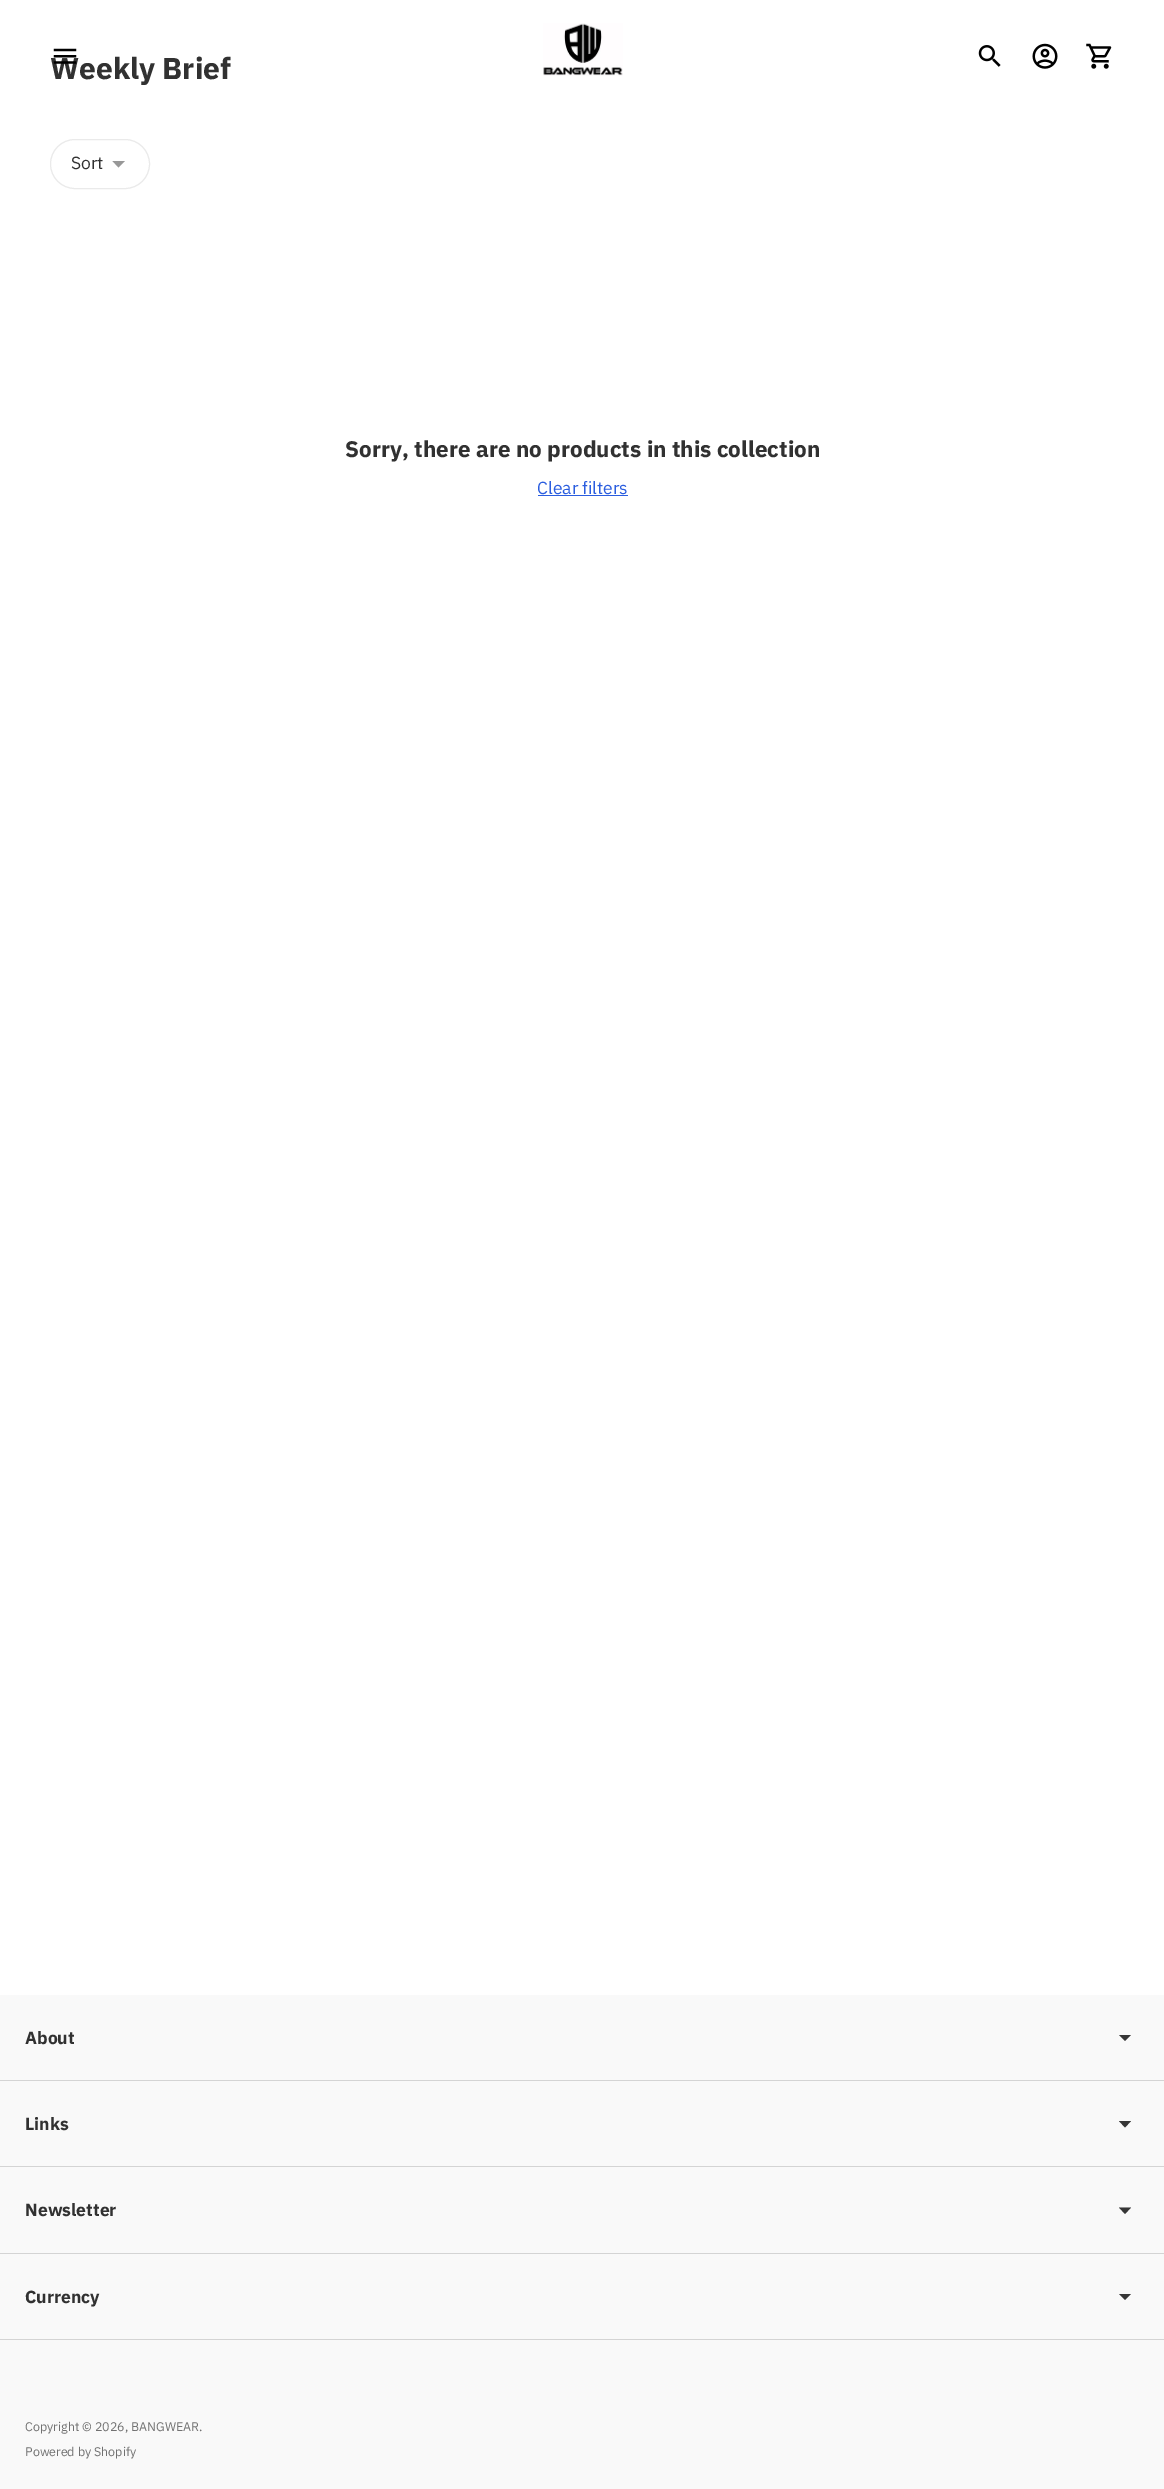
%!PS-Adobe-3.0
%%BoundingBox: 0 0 1164 2489
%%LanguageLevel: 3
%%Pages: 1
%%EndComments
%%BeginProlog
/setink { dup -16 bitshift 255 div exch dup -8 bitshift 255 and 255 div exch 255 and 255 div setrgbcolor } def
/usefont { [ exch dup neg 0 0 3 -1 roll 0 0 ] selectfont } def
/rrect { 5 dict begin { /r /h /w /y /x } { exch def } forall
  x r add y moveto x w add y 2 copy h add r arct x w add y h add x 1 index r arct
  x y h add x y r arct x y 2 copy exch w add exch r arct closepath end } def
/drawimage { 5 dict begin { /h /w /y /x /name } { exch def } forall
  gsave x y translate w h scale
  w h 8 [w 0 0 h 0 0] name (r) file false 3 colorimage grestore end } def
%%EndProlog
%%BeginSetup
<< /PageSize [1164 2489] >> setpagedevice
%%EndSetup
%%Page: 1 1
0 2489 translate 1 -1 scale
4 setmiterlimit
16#FFFFFF setink
0 0 1164 2489 rectfill
/IBMPlexSans-Bold 30 usefont
16#313131 setink
50 79 moveto (Weekly Brief) show
(img1.raw) 53 48 24 16 drawimage
(img2.raw) 543 23 80 53 drawimage
(img3.raw) 978 45 23 22 drawimage
(img4.raw) 1032 43 26 26 drawimage
(img5.raw) 1086 43 26 26 drawimage
16#EAEAEA setink
50.5 139.5 99 49 24.5 rrect stroke
/IBMPlexSans-Regular 17.5 usefont
16#313131 setink
71 169 moveto (Sort) show
16#989898 setink
112.5 161 moveto 118.5 167.5 lineto 125 161 lineto closepath fill
/IBMPlexSans-Bold 22.5 usefont
16#313131 setink
345 457 moveto (Sorry, there are no products in this collection) show
/IBMPlexSans-Regular 17.5 usefont
16#2A5DDF setink
537 494 moveto (Clear filters) show
[
    [538 495 90 1 16#2A5DDF]
    [0 1995 1164 494 16#F9F9F9]
    [0 2080 1164 1 16#D4D4D4]
] { aload pop setink rectfill } forall
/IBMPlexSans-Bold 17.5 usefont
16#313131 setink
25 2044 moveto (About) show
16#363636 setink
1119 2035 moveto 1125 2041 lineto 1131 2035 lineto closepath fill
16#D4D4D4 setink
0 2166 1164 1 rectfill
16#313131 setink
25 2130 moveto (Links) show
16#363636 setink
1119 2121 moveto 1125 2127.5 lineto 1131 2121 lineto closepath fill
16#D4D4D4 setink
0 2253 1164 1 rectfill
16#313131 setink
25 2216 moveto (Newsletter) show
16#363636 setink
1119 2207.5 moveto 1125 2214 lineto 1131 2207.5 lineto closepath fill
16#D4D4D4 setink
0 2339 1164 1 rectfill
16#313131 setink
25 2303 moveto (Currency) show
16#363636 setink
1119 2294 moveto 1125 2300 lineto 1131 2294 lineto closepath fill
/IBMPlexSans-Regular 12.5 usefont
16#717171 setink
25 2431 moveto (Copyright © 2026, BANGWEAR.) show
25 2456 moveto (Powered by Shopify) show
showpage
%%EOF
